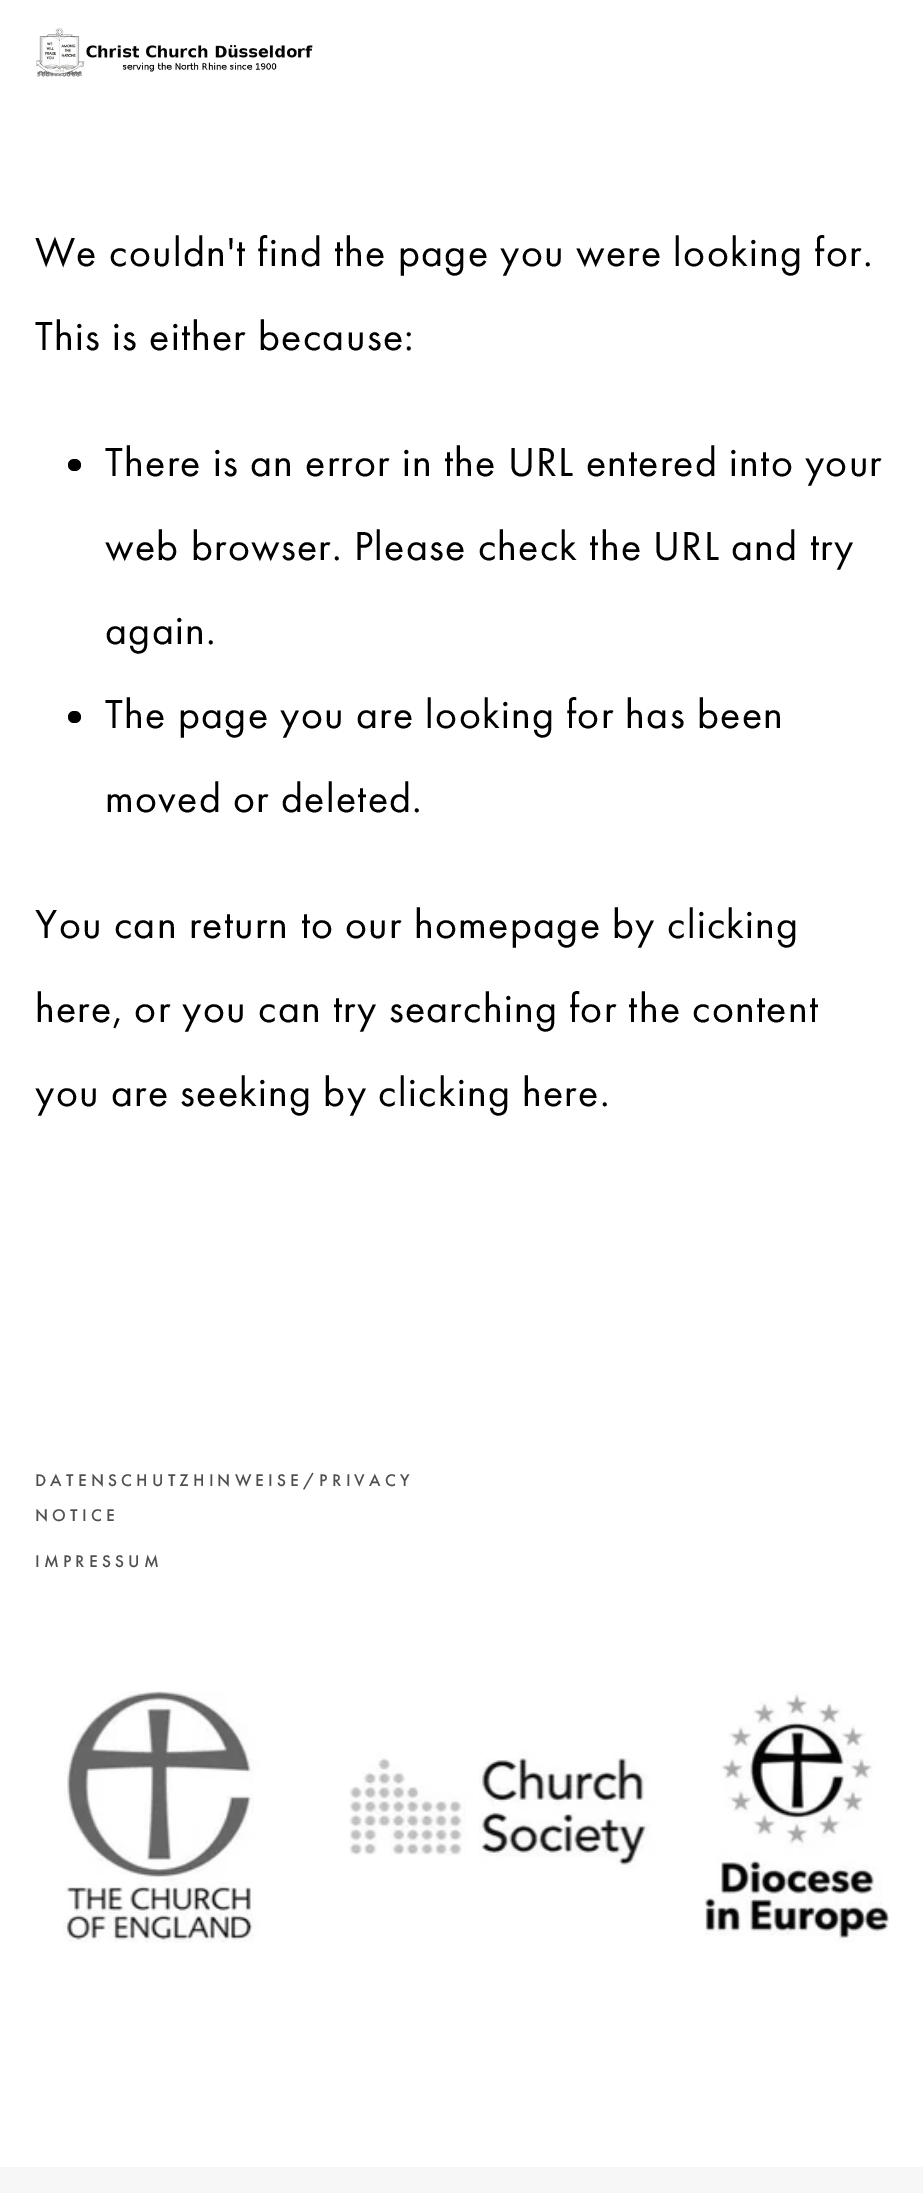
%!PS-Adobe-3.0
%%BoundingBox: 0 0 923 2193
%%LanguageLevel: 3
%%Pages: 1
%%EndComments
%%BeginProlog
/setink { dup -16 bitshift 255 div exch dup -8 bitshift 255 and 255 div exch 255 and 255 div setrgbcolor } def
/usefont { [ exch dup neg 0 0 3 -1 roll 0 0 ] selectfont } def
/rrect { 5 dict begin { /r /h /w /y /x } { exch def } forall
  x r add y moveto x w add y 2 copy h add r arct x w add y h add x 1 index r arct
  x y h add x y r arct x y 2 copy exch w add exch r arct closepath end } def
/drawimage { 5 dict begin { /h /w /y /x /name } { exch def } forall
  gsave x y translate w h scale
  w h 8 [w 0 0 h 0 0] name (r) file false 3 colorimage grestore end } def
%%EndProlog
%%BeginSetup
<< /PageSize [923 2193] >> setpagedevice
%%EndSetup
%%Page: 1 1
0 2193 translate 1 -1 scale
4 setmiterlimit
16#FFFFFF setink
0 0 923 2193 rectfill
(img1.raw) 36 28 277 49 drawimage
16#F7F7F7 setink
0 2167 923 26 rectfill
/FuturaPT-Regular 42 usefont
16#000000 setink
35 266 moveto 1.25 0 (We couldn't find the page you were looking for.) ashow
35 350 moveto 1.25 0 (This is either because:) ashow
68 459 13 12 6 rrect fill
105 476 moveto 1.25 0 (There is an error in the URL entered into your) ashow
105 560 moveto 1.25 0 (web browser. Please check the URL and try) ashow
105 644 moveto 1.25 0 (again.) ashow
68 711 13 12 6 rrect fill
105 728 moveto 1.25 0 (The page you are looking for has been) ashow
105 812 moveto 1.25 0 (moved or deleted.) ashow
35 938 moveto 1.25 0 (You can return to our homepage by clicking) ashow
35 1022 moveto 1.25 0 (here, or you can try searching for the content) ashow
35 1106 moveto 1.25 0 (you are seeking by clicking here.) ashow
/FuturaPT-Medium 17.5 usefont
16#4F4F4F setink
35 1486 moveto 4.2 0 (DATENSCHUTZHINWEISE/PRIVACY) ashow
35 1521 moveto 4.2 0 (NOTICE) ashow
35 1567 moveto 4.2 0 (IMPRESSUM) ashow
(img2.raw) 63 1691 826 252 drawimage
showpage
%%EOF
